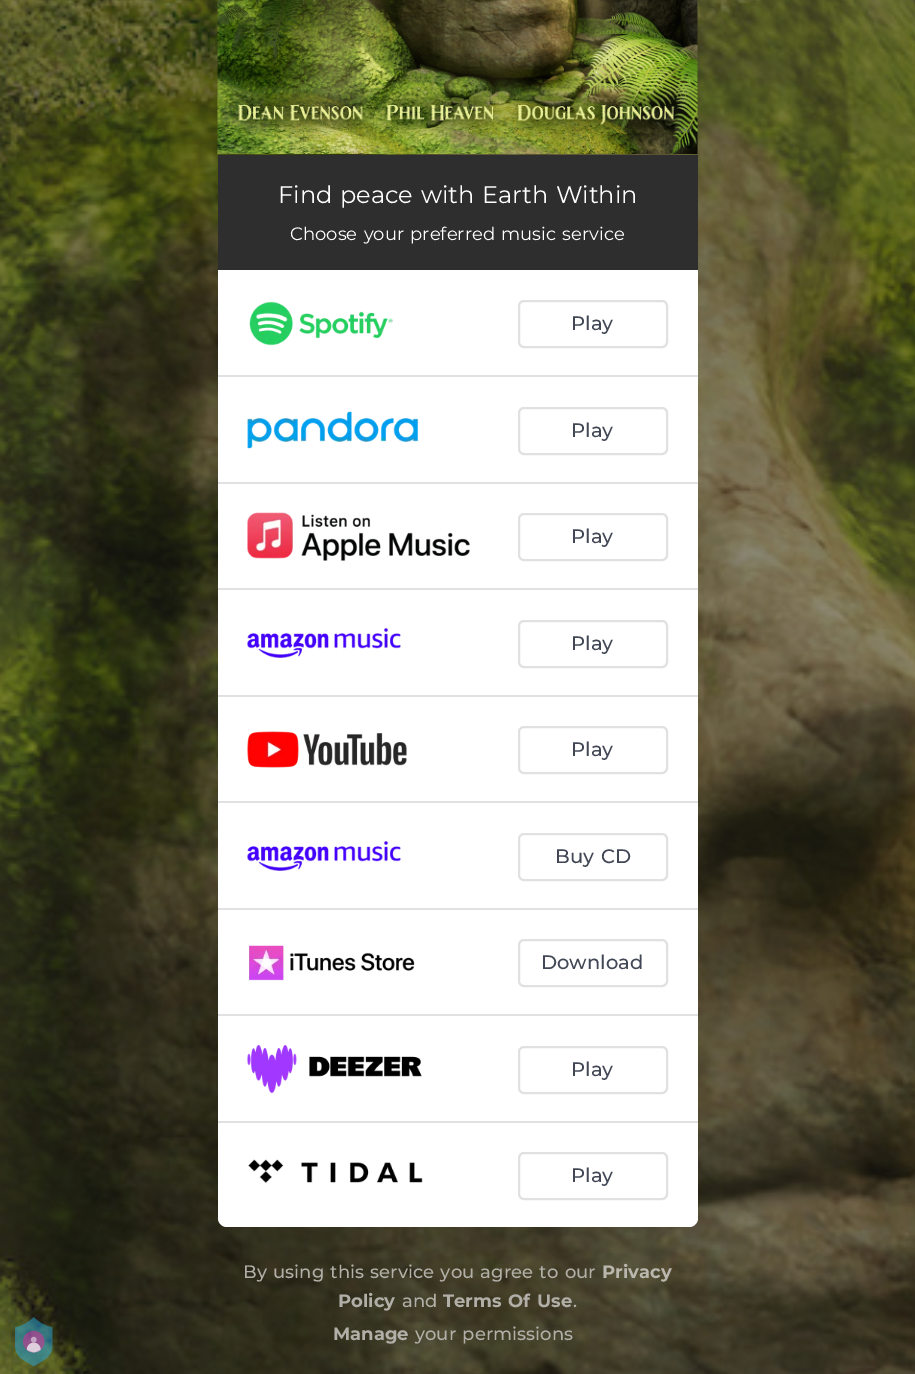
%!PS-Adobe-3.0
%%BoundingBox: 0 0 915 1374
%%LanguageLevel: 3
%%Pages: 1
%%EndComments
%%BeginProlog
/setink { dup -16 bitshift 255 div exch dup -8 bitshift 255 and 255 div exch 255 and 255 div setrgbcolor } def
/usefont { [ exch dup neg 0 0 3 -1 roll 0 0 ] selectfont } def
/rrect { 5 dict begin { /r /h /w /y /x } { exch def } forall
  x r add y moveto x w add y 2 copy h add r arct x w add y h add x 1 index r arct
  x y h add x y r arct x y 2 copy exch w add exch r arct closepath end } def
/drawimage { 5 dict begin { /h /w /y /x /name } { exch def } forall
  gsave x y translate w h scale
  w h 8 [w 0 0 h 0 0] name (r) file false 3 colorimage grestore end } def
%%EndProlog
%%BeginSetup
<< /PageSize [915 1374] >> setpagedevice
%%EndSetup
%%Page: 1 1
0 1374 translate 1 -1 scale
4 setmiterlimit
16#FFFFFF setink
0 0 915 1374 rectfill
(img2.raw) 0 0 915 1374 drawimage
(img1.raw) 15 1317 38 50 drawimage
(img3.raw) 217 0 481 154 drawimage
16#2E2E2E setink
218 155 480 115 rectfill
/Montserrat-Regular 24 usefont
16#FFFFFF setink
278 203 moveto 1.5 0 32 (Find peace with Earth Within) widthshow
/Montserrat-Regular 18 usefont
290 240 moveto 1.5 0 32 (Choose your preferred music service) widthshow
218 270 moveto 698 270 lineto 698 1218 lineto 698 1223 694 1227 689 1227 curveto 227 1227 lineto 222 1227 218 1223 218 1218 curveto closepath fill
16#E1E1E4 setink
218 375 480 2 rectfill
(img4.raw) 249 301 144 45 drawimage
2 setlinewidth
519 301 148 46 5 rrect stroke
/Montserrat-Medium 19.5 usefont
16#414754 setink
571 330 moveto (Play) show
16#E1E1E4 setink
218 482 480 2 rectfill
(img5.raw) 247 411 173 38 drawimage
519 408 148 46 5 rrect stroke
16#414754 setink
571 437 moveto (Play) show
16#E1E1E4 setink
218 588 480 2 rectfill
(img6.raw) 247 512 223 49 drawimage
519 514 148 46 5 rrect stroke
16#414754 setink
571 543 moveto (Play) show
16#E1E1E4 setink
218 695 480 2 rectfill
(img7.raw) 247 628 154 30 drawimage
519 621 148 46 5 rrect stroke
16#414754 setink
571 650 moveto (Play) show
16#E1E1E4 setink
218 801 480 2 rectfill
(img8.raw) 247 731 160 37 drawimage
519 727 148 46 5 rrect stroke
16#414754 setink
571 756 moveto (Play) show
16#E1E1E4 setink
218 908 480 2 rectfill
(img7.raw) 247 841 154 30 drawimage
519 834 148 46 5 rrect stroke
16#414754 setink
555 863 moveto 1.5 0 32 (Buy CD) widthshow
16#E1E1E4 setink
218 1014 480 2 rectfill
(img9.raw) 249 945 166 36 drawimage
519 940 148 46 5 rrect stroke
16#414754 setink
541 969 moveto (Download) show
16#E1E1E4 setink
218 1121 480 2 rectfill
(img10.raw) 247 1045 175 48 drawimage
519 1047 148 46 5 rrect stroke
16#414754 setink
571 1076 moveto (Play) show
(img11.raw) 248 1159 175 24 drawimage
16#E1E1E4 setink
519 1153 148 46 5 rrect stroke
16#414754 setink
571 1182 moveto (Play) show
/Montserrat-Medium 18 usefont
16#B1AFA7 setink
243 1278 moveto 1.5 0 32 (By using this service you agree to our) widthshow
/Montserrat-Bold 18 usefont
16#BAB8AE setink
602 1278 moveto (Privacy) show
16#B1AFA7 setink
338 1307 moveto (Policy) show
/Montserrat-Medium 18 usefont
402 1307 moveto (and) show
/Montserrat-Bold 18 usefont
443 1307 moveto 1.5 0 32 (Terms Of Use) widthshow
/Montserrat-Medium 18 usefont
573 1307 moveto (.) show
/Montserrat-Bold 18 usefont
333 1340 moveto (Manage) show
/Montserrat-Medium 18 usefont
415 1340 moveto 1.5 0 32 (your permissions) widthshow
showpage
%%EOF
